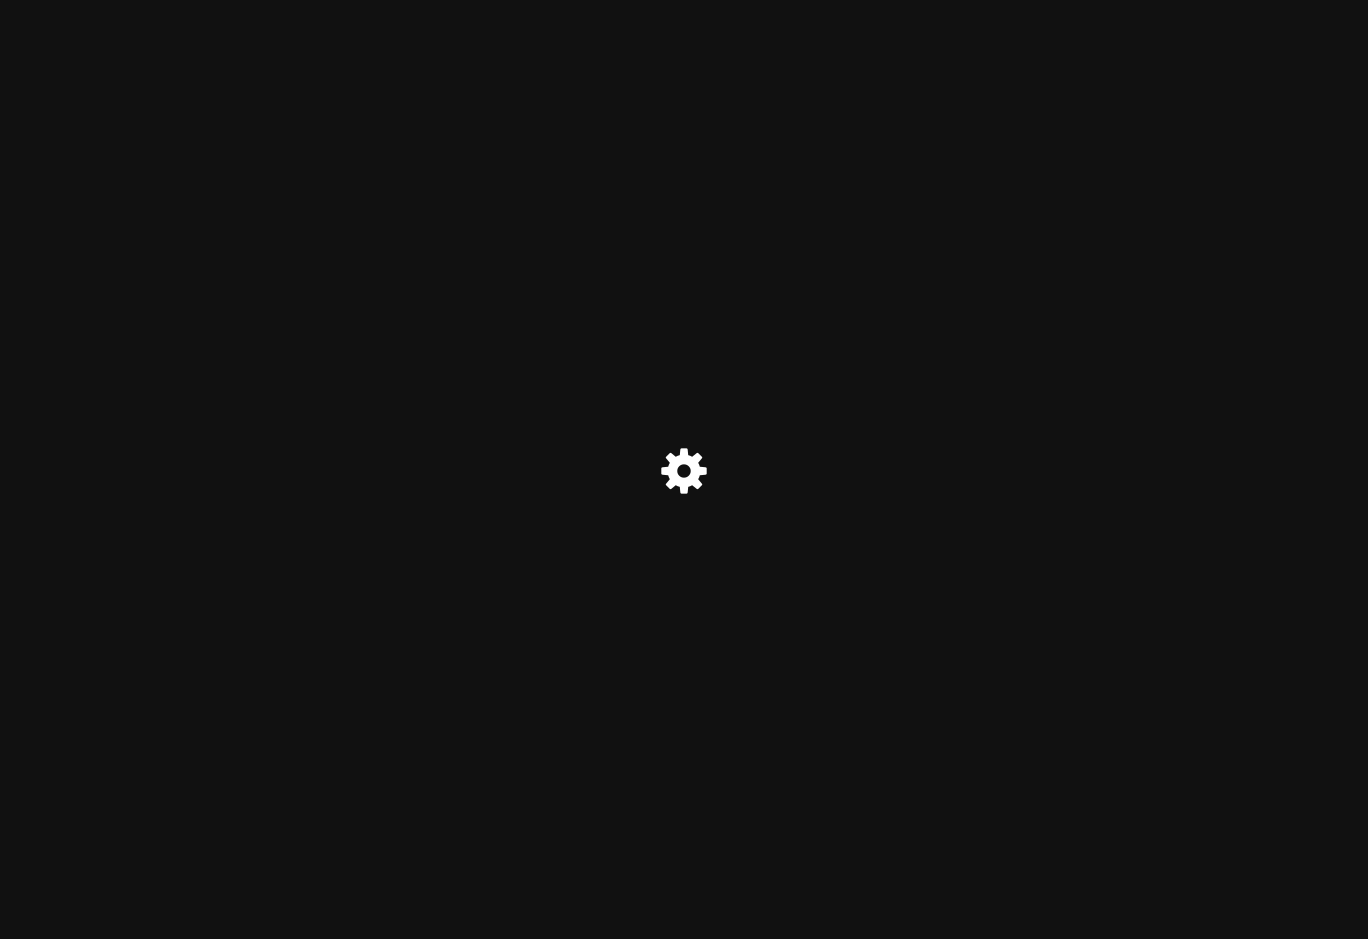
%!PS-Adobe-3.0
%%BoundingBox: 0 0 1368 939
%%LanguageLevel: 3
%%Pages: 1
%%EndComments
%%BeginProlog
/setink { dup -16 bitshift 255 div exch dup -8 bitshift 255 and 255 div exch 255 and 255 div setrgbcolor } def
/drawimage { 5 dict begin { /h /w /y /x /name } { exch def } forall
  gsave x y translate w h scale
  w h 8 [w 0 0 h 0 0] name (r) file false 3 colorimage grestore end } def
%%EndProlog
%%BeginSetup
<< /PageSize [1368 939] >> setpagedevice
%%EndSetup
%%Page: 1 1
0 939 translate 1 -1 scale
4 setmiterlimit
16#111111 setink
0 0 1368 939 rectfill
(img1.raw) 661 448 46 46 drawimage
showpage
%%EOF
